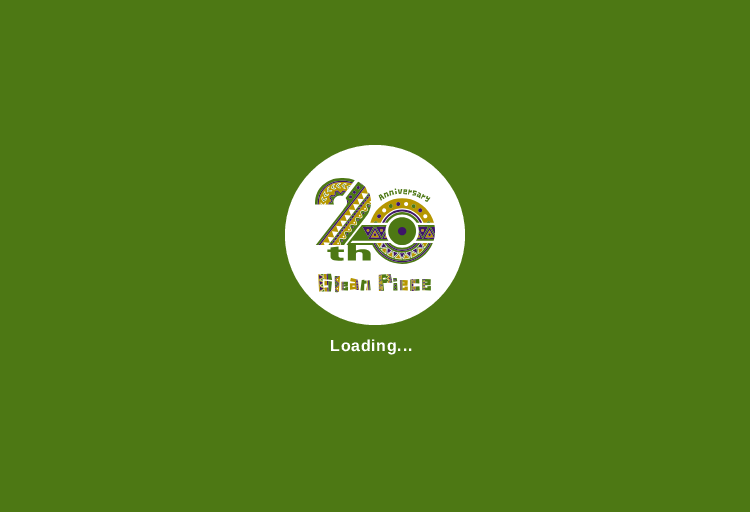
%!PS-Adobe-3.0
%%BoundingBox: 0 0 750 512
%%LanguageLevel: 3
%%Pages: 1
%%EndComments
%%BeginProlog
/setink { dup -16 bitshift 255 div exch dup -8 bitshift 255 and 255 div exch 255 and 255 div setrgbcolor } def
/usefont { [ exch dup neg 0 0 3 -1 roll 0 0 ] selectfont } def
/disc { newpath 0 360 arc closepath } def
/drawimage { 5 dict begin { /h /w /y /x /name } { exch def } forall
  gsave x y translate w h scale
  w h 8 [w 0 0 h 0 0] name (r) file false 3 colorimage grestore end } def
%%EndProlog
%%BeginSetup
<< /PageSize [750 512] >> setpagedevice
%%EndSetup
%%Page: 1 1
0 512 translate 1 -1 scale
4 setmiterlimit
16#4D7814 setink
0 0 750 512 rectfill
16#FFFFFF setink
375 235 90 disc fill
(img1.raw) 315 178 120 115 drawimage
/LiberationSans-Bold 16 usefont
330 351 moveto 0.75 0 (Loading...) ashow
showpage
%%EOF
